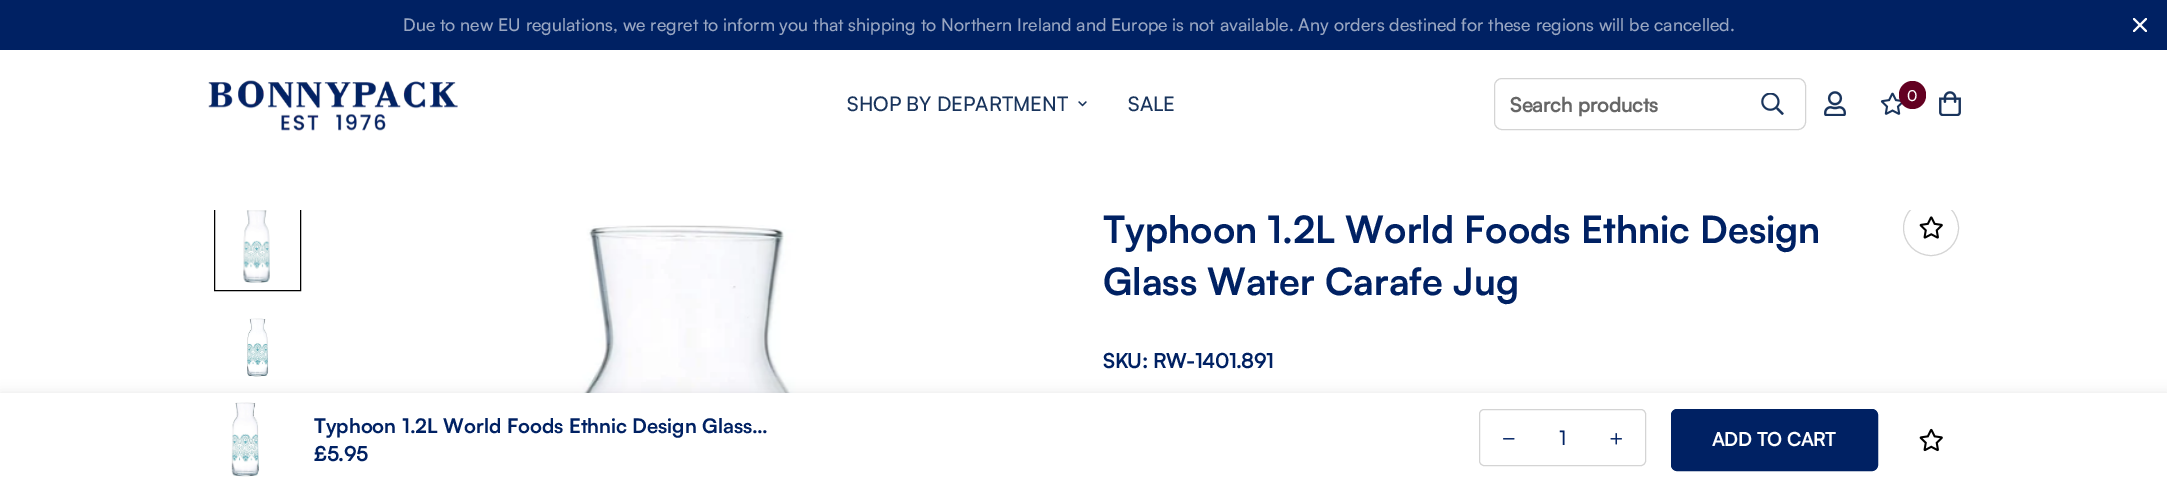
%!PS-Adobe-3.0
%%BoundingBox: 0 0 2167 487
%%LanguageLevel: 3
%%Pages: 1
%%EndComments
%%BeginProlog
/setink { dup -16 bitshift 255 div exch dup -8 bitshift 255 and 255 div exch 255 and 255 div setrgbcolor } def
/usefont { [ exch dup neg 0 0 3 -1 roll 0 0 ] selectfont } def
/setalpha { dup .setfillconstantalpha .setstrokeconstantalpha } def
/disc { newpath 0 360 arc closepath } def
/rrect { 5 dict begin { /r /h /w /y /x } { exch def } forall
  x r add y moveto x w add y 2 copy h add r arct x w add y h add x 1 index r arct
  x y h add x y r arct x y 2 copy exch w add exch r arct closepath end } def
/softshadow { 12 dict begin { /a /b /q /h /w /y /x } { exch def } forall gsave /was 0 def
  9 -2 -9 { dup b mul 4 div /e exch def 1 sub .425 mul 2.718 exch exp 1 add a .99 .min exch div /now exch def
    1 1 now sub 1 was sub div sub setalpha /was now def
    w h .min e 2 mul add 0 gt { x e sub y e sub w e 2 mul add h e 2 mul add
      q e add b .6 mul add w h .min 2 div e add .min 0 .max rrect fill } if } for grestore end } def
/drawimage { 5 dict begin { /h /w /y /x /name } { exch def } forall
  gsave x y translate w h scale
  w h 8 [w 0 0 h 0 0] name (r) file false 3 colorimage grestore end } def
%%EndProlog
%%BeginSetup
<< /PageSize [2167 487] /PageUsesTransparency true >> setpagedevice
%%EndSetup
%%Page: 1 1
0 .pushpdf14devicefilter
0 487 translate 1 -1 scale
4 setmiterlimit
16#FFFFFF setink
0 0 2167 487 rectfill
16#002163 setink
0 0 2167 50 rectfill
/Satoshi-Medium 17.5 usefont
16#99A6C1 setink
403 31 moveto (Due to new EU regulations, we regret to inform you that shipping to Northern Ireland and Europe is not available. Any orders destined for these regions will be cancelled.) show
16#FFFFFF setink
2.1 setlinewidth
1 setlinecap
1 setlinejoin
2134 31 moveto 2146 19 lineto 2134 19 moveto 2146 31 lineto stroke
(img1.raw) 208 80 250 51 drawimage
/Satoshi-Medium 20 usefont
16#19345C setink
847 111 moveto (SHOP BY DEPARTMENT) show
(img2.raw) 1078 101 9 6 drawimage
1128 111 moveto (SALE) show
16#D4D4D4 setink
1 setlinewidth
0 setlinecap
0 setlinejoin
1494.5 78.5 311 51 7.5 rrect stroke
/Satoshi-Bold 20 usefont
16#666666 setink
1510 112 moveto (Search products) show
(img3.raw) 1761 93 23 22 drawimage
(img4.raw) 1824 91 22 25 drawimage
(img5.raw) 1880 92 22 23 drawimage
16#630021 setink
1899 81 27 28 13.5 rrect fill
/Satoshi-Medium 15 usefont
16#FFFFFF setink
1907 101 moveto (0) show
(img6.raw) 1939 91 22 25 drawimage
16#000000 setink
214.5 200.5 86 90 rectstroke
16#D4D4D4 setink
1931 228 27.5 disc stroke
16#FFFFFF setink
214 200 1739 10 rectfill
(img7.raw) 243 210 27 73 drawimage
(img8.raw) 247 318 22 59 drawimage
(img9.raw) 561 225 252 168 drawimage
/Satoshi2-Bold 37.5 usefont
16#002163 setink
1103 243 moveto (Typhoon 1.2L World Foods Ethnic Design) show
1103 295 moveto (Glass Water Carafe Jug) show
(img10.raw) 1919 216 24 23 drawimage
/Satoshi-Bold 20 usefont
1103 368 moveto (SKU: RW-1401.891) show
16#000000 setink
0 393 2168 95 0 6 0.09 softshadow
16#FFFFFF setink
0 393 2167 94 rectfill
(img11.raw) 231 402 28 75 drawimage
/Satoshi2-Bold 20 usefont
16#002163 setink
314 433 moveto (Typhoon 1.2L World Foods Ethnic Design Glass…) show
/Satoshi-Bold 20 usefont
314 461 moveto (£5.95) show
16#D4D4D4 setink
1479.5 409.5 166 56 4.5 rrect stroke
(img12.raw) 1503 438 12 2 drawimage
/Satoshi-Medium 20 usefont
16#002163 setink
1559 445 moveto (1) show
(img13.raw) 1610 433 12 12 drawimage
1671.5 409.5 206 61 5.5 rrect gsave fill grestore
stroke
/Satoshi-Bold 18.75 usefont
16#FFFFFF setink
1712 446 moveto (ADD TO CART) show
(img14.raw) 1919 428 24 24 drawimage
.poppdf14devicefilter showpage
%%EOF
